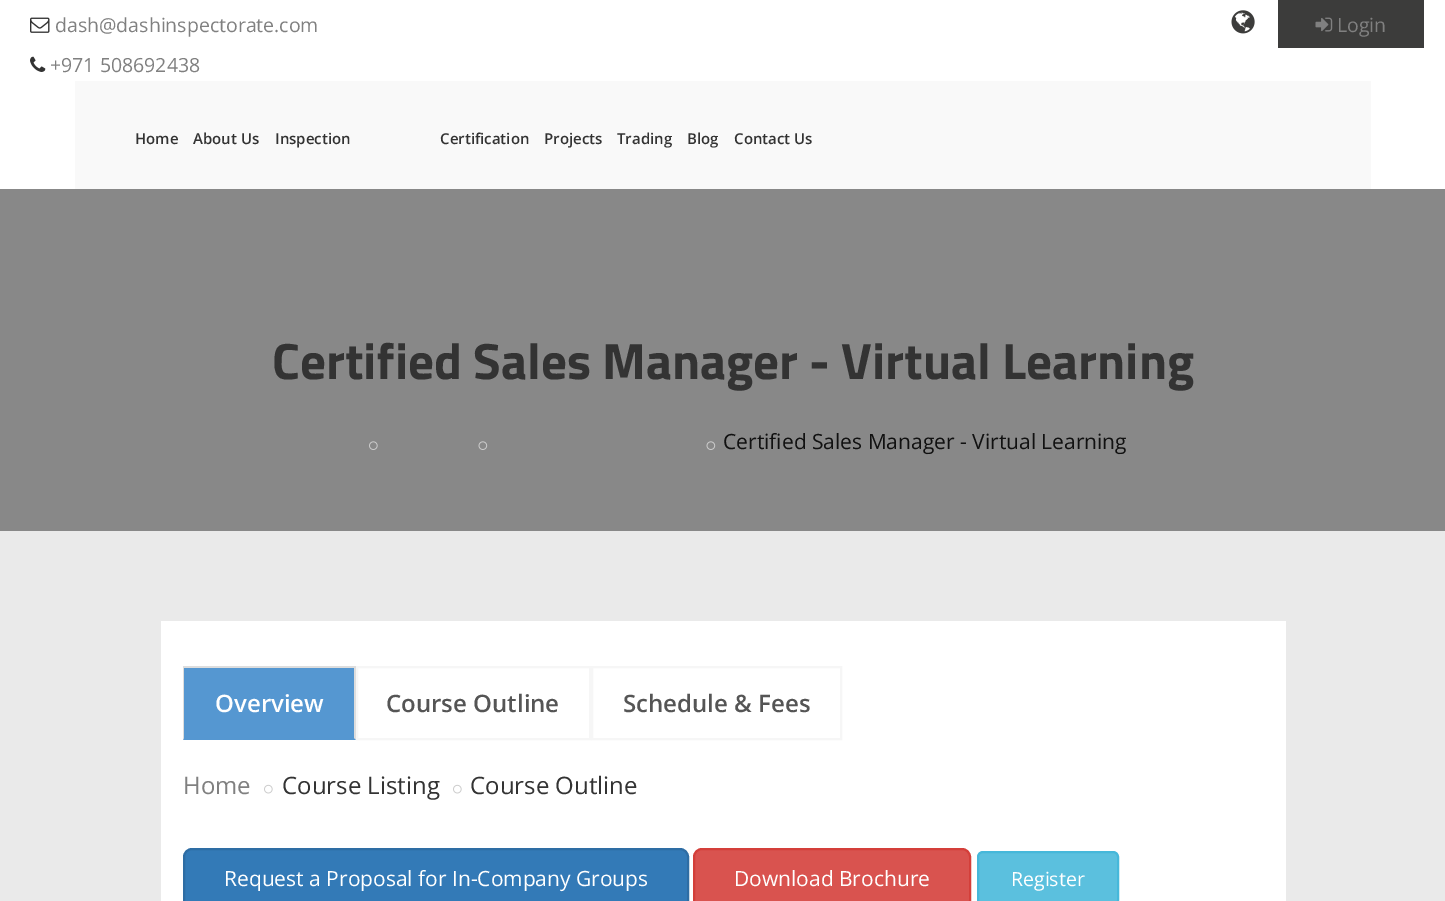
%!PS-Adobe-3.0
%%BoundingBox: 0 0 1445 901
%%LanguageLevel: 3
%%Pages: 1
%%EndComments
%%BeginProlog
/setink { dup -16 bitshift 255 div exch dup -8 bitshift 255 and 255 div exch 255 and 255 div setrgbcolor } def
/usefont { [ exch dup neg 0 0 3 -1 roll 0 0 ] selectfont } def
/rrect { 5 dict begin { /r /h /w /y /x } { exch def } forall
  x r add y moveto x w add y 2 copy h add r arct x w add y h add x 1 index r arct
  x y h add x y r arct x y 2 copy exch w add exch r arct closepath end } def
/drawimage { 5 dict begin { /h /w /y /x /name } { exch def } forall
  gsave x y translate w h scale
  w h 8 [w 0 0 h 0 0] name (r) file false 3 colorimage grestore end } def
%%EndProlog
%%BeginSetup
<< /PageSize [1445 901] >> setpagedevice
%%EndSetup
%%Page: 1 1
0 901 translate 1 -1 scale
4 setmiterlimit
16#FFFFFF setink
0 0 1445 901 rectfill
(img1.raw) 30 17 20 16 drawimage
/OpenSans-Regular 19.5 usefont
16#808080 setink
55 32 moveto (dash@dashinspectorate.com) show
(img2.raw) 30 56 16 16 drawimage
50 72 moveto (+971 508692438) show
(img3.raw) 1231 10 24 24 drawimage
16#3C3C3B setink
1278 0 146 48 rectfill
(img4.raw) 1315 17 18 15 drawimage
16#808080 setink
1337 32 moveto (Login) show
16#F9F9F9 setink
75 81 1296 108 rectfill
/OpenSans-SemiBold 15 usefont
16#333333 setink
[
    [(Home) 135 144]
    [(About Us) 193 144]
    [(Inspection) 275 144]
    [(Certification) 440 144]
    [(Projects) 544 144]
    [(Trading) 617 144]
    [(Blog) 687 144]
    [(Contact Us) 734 144]
] { aload pop moveto show } forall
16#888888 setink
0 189 1445 342 rectfill
/TitilliumWeb-Bold 51 usefont
16#333333 setink
272 379 moveto (Certified Sales Manager - Virtual Learning) show
(img5.raw) 369 441 9 9 drawimage
(img6.raw) 478 441 10 9 drawimage
(img6.raw) 706 441 10 9 drawimage
/OpenSans-Regular 21 usefont
16#111111 setink
723 449 moveto (Certified Sales Manager - Virtual Learning) show
[
    [0 531 1445 370 16#EAEAEA]
    [161 621 1125 280 16#FFFFFF]
    [183 668 173 72 16#5597D1]
    [183 666 173 2 16#DDDDDD]
] { aload pop setink rectfill } forall
356 666 moveto 356 740 lineto 354 738 lineto 354 668 lineto closepath fill
183 740 moveto 183 666 lineto 184 668 lineto 184 738 lineto closepath fill
/OpenSans-SemiBold 24 usefont
16#FFFFFF setink
215 712 moveto (Overview) show
16#F6F6F6 setink
2 setlinewidth
357 667 233 72 rectstroke
16#555555 setink
386 712 moveto (Course Outline) show
16#F6F6F6 setink
592 667 249 72 rectstroke
16#555555 setink
623 712 moveto (Schedule & Fees) show
/OpenSans-Regular 24 usefont
16#808080 setink
183 794 moveto (Home) show
(img7.raw) 264 784 9 10 drawimage
16#333333 setink
282 794 moveto (Course Listing) show
(img7.raw) 453 784 9 10 drawimage
470 794 moveto (Course Outline) show
16#337AB7 setink
184 849 504 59 8 rrect gsave fill grestore
16#2E6DA4 setink
stroke
/OpenSans-Regular 21 usefont
16#FFFFFF setink
224 886 moveto (Request a Proposal for In-Company Groups) show
16#D9534F setink
694 849 276 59 8 rrect gsave fill grestore
16#D43F3A setink
stroke
16#FFFFFF setink
734 886 moveto (Download Brochure) show
16#5BC0DE setink
978 852 140 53 5 rrect gsave fill grestore
16#46B8DA setink
stroke
/OpenSans-Regular 19.5 usefont
16#FFFFFF setink
1011 886 moveto (Register) show
showpage
%%EOF
